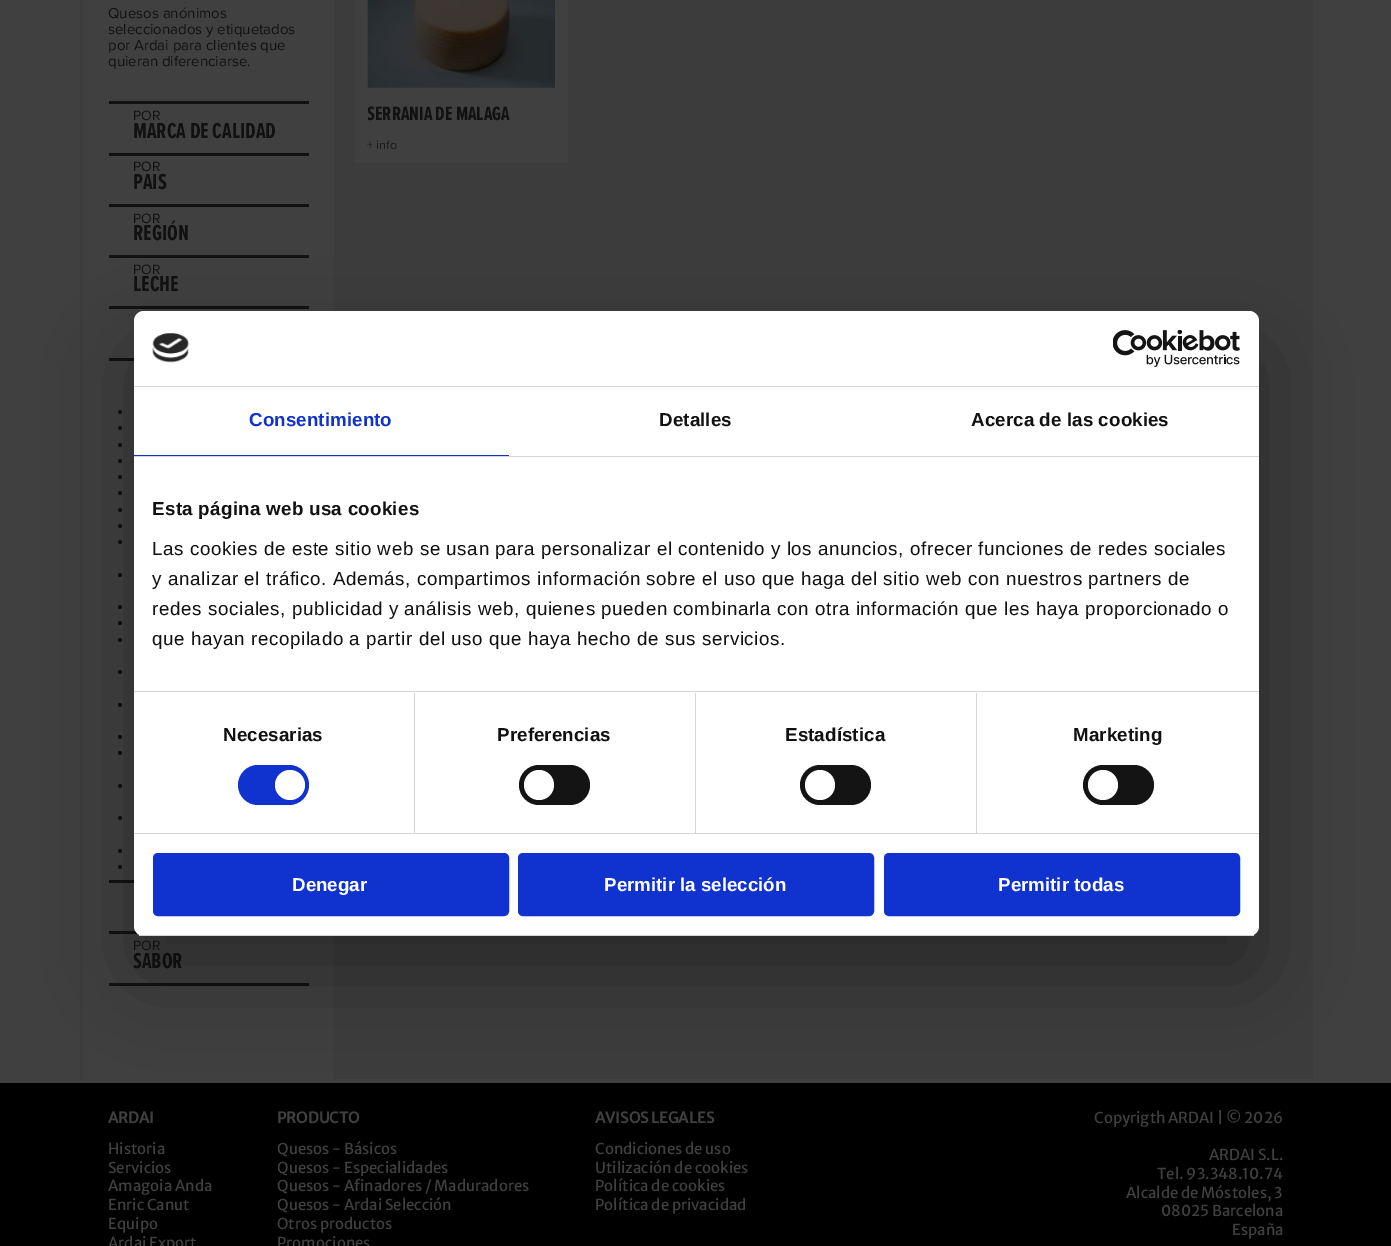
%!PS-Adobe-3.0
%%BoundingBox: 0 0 1391 1246
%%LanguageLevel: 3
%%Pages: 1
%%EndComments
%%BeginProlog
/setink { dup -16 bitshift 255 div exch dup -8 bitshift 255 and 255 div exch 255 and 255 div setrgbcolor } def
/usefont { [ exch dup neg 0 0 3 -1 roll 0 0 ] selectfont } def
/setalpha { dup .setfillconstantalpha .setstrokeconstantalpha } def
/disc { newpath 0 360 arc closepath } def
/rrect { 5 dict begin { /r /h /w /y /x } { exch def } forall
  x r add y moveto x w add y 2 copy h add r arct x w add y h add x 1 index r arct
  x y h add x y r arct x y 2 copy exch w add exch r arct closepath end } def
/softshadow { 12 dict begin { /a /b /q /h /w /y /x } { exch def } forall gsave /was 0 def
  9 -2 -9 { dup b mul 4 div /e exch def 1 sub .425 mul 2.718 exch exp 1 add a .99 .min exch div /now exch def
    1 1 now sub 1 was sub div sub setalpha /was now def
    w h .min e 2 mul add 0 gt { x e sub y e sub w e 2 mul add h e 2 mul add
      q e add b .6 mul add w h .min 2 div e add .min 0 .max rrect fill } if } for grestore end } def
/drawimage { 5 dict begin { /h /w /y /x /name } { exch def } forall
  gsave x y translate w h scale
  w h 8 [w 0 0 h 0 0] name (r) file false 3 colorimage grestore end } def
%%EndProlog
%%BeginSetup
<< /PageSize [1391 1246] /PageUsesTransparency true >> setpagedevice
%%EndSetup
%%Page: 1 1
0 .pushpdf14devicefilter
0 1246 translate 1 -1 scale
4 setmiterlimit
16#404040 setink
0 0 1391 1246 rectfill
[
    [334 0 979 1079 16#3C3C3C]
    [80 0 3 1079 16#3C3C3C]
    [109 101 200 3 16#111111]
] { aload pop setink rectfill } forall
/ProximaNova-Regular 15 usefont
108 18 moveto (Quesos anónimos) show
gsave
109 0 200 101 rectclip
108 34 moveto (seleccionados y etiquetados) show
grestore
108 50 moveto (por Ardai para clientes que) show
108 66 moveto (quieran diferenciarse.) show
109 153 200 3 rectfill
/ProximaNova-Regular 14 usefont
133 120 moveto (POR) show
/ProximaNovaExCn-Bold 22.5 usefont
133 138 moveto (MARCA DE CALIDAD) show
109 204 200 3 rectfill
/ProximaNova-Regular 14 usefont
133 171 moveto (POR) show
/ProximaNovaExCn-Bold 22.5 usefont
133 189 moveto (PAIS) show
109 255 200 3 rectfill
/ProximaNova-Regular 14 usefont
133 223 moveto (POR) show
/ProximaNovaExCn-Bold 22.5 usefont
133 240 moveto (REGIÓN) show
109 306 200 3 rectfill
/ProximaNova-Regular 14 usefont
133 274 moveto (POR) show
/ProximaNovaExCn-Bold 22.5 usefont
133 291 moveto (LECHE) show
109 358 25 3 rectfill
109 880 25 3 rectfill
120 412 2 disc fill
120 428 2 disc fill
120 445 2 disc fill
120 461 2 disc fill
120 477 2 disc fill
120 493 2 disc fill
120 510 2 disc fill
120 526 2 disc fill
120 542 2 disc fill
120 575 2 disc fill
120 607 2 disc fill
120 623 2 disc fill
120 640 2 disc fill
120 672 2 disc fill
120 705 2 disc fill
120 737 2 disc fill
120 753 2 disc fill
120 786 2 disc fill
120 818 2 disc fill
120 851 2 disc fill
120 867 2 disc fill
109 931 29 3 rectfill
109 983 200 3 rectfill
/ProximaNova-Regular 14 usefont
133 950 moveto (POR) show
/ProximaNovaExCn-Bold 22.5 usefont
133 968 moveto (SABOR) show
16#404040 setink
355 0 213 163 rectfill
(img1.raw) 367 0 188 88 drawimage
gsave
368 106 187 34 rectclip
/ProximaNovaExCn-Bold 20 usefont
16#111111 setink
367 120 moveto (SERRANÍA DE MÁLAGA) show
grestore
/ProximaNova-Regular 12.5 usefont
16#1A1A1A setink
367 149 moveto (+ info) show
16#000000 setink
0 1083 1391 163 rectfill
134 351 1125 625 10 42.5 0.3 softshadow
16#FFFFFF setink
134 311 1125 625 10 rrect fill
16#D6D6D6 setink
134 386 1125 1 rectfill
(img2.raw) 152 333 37 30 drawimage
(img3.raw) 1113 330 127 37 drawimage
134 456 1125 1 rectfill
16#1032CF setink
134 455 375 1 rectfill
/LiberationSans-Bold 18.75 usefont
249 426 moveto 0.1 0 (Consentimiento) ashow
16#111111 setink
659 426 moveto 0.1 0 (Detalles) ashow
971 426 moveto 0.1 0 (Acerca de las cookies) ashow
16#D6D6D6 setink
134 691 1125 1 rectfill
16#111111 setink
152 515 moveto 0.3 0 (Esta página web usa cookies) ashow
/LiberationSans-Regular 18.75 usefont
152 555 moveto 0.62 0 (Las cookies de este sitio web se usan para personalizar el contenido y los anuncios, ofrecer funciones de redes sociales) ashow
152 585 moveto 0.62 0 (y analizar el tráfico. Además, compartimos información sobre el uso que haga del sitio web con nuestros partners de) ashow
152 615 moveto 0.62 0 (redes sociales, publicidad y análisis web, quienes pueden combinarla con otra información que les haya proporcionado o) ashow
152 645 moveto 0.62 0 (que hayan recopilado a partir del uso que haya hecho de sus servicios.) ashow
16#D6D6D6 setink
134 833 1125 1 rectfill
414 693 1 140 rectfill
/LiberationSans-Bold 18.75 usefont
16#111111 setink
223 741 moveto 0.1 0 (Necesarias) ashow
16#1032CF setink
238 765 71 40 20 rrect fill
16#FFFFFF setink
290 785 15 disc fill
16#D6D6D6 setink
695 693 1 140 rectfill
16#111111 setink
497 741 moveto 0.1 0 (Preferencias) ashow
16#141414 setink
519 765 71 40 20 rrect fill
16#FFFFFF setink
539 785 15 disc fill
16#D6D6D6 setink
976 693 1 140 rectfill
16#111111 setink
785 741 moveto 0.1 0 (Estadística) ashow
16#141414 setink
800 765 71 40 20 rrect fill
16#FFFFFF setink
820 785 15 disc fill
16#111111 setink
1073 741 moveto 0.1 0 (Marketing) ashow
16#141414 setink
1083 765 71 40 20 rrect fill
16#FFFFFF setink
1103 785 15 disc fill
gsave
134 311 1125 625 10 rrect clip newpath
16#D6D6D6 setink
134 935 1125 1 rectfill
grestore
16#1032CF setink
154.5 854.5 353 60 3.5 rrect gsave fill grestore
3 setlinewidth
stroke
16#FFFFFF setink
292 891 moveto (Denegar) show
16#1032CF setink
519.5 854.5 353 60 3.5 rrect gsave fill grestore
stroke
16#FFFFFF setink
604 891 moveto (Permitir la selección) show
16#1032CF setink
885.5 854.5 353 60 3.5 rrect gsave fill grestore
stroke
16#FFFFFF setink
998 891 moveto (Permitir todas) show
/MerriweatherSans-Bold 15 usefont
16#404040 setink
108 1123 moveto (ARDAI) show
/MerriweatherSans-Regular 15 usefont
[
    [(Historia) 108 1154]
    [(Servicios) 108 1173]
    [(Amagoia Anda) 108 1191]
    [(Enric Canut) 108 1210]
    [(Equipo) 108 1229]
    [(Ardai Export) 108 1248]
] { aload pop moveto show } forall
/MerriweatherSans-Bold 15 usefont
277 1123 moveto (PRODUCTO) show
/MerriweatherSans-Regular 15 usefont
277 1154 moveto (Quesos - Básicos) show
gsave
278 1158 252 18 rectclip
277 1173 moveto (Quesos - Especialidades) show
grestore
[
    [(Quesos - Afinadores / Maduradores) 277 1191]
    [(Quesos - Ardai Selección) 277 1210]
    [(Otros productos) 277 1229]
    [(Promociones) 277 1248]
] { aload pop moveto show } forall
/MerriweatherSans-Bold 15 usefont
595 1123 moveto (AVISOS LEGALES) show
/MerriweatherSans-Regular 15 usefont
[
    [(Condiciones de uso) 595 1154]
    [(Utilización de cookies) 595 1173]
    [(Política de cookies) 595 1191]
    [(Política de privacidad) 595 1210]
    [(Copyrigth ARDAI | © 2026) 1094 1123]
    [(ARDAI S.L.) 1209 1160]
    [(Tel. 93.348.10.74) 1157 1179]
    [(Alcalde de Móstoles, 3) 1126 1198]
    [(08025 Barcelona) 1161 1216]
    [(España) 1232 1235]
] { aload pop moveto show } forall
.poppdf14devicefilter showpage
%%EOF
